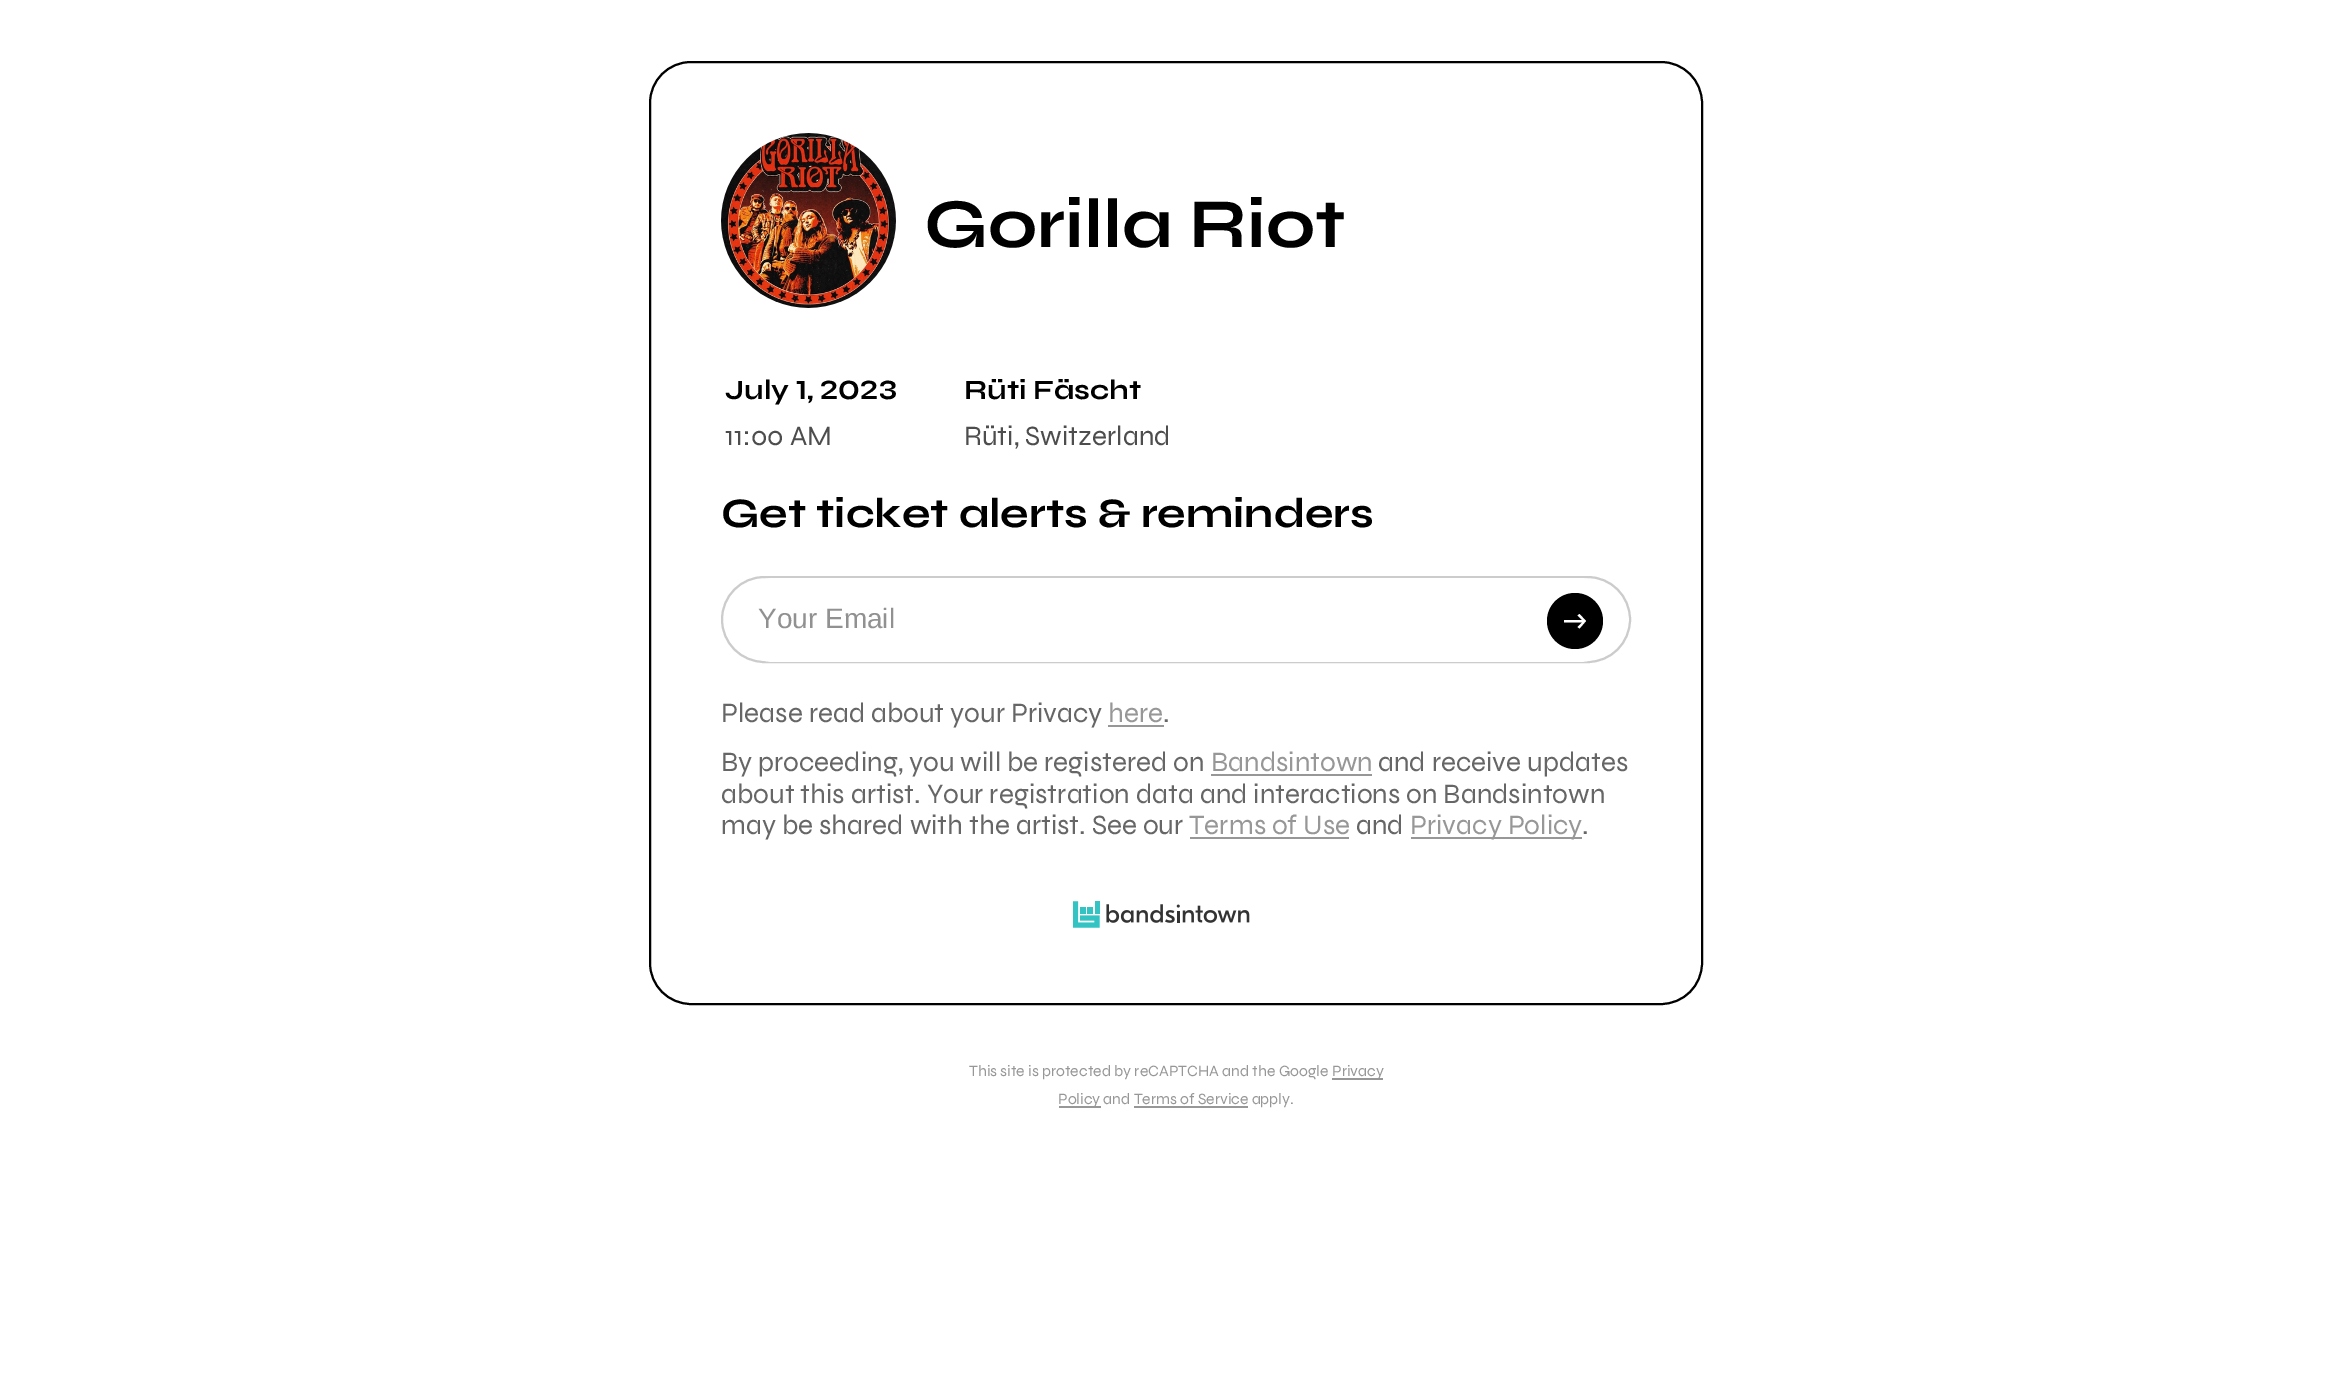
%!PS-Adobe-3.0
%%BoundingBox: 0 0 2352 1385
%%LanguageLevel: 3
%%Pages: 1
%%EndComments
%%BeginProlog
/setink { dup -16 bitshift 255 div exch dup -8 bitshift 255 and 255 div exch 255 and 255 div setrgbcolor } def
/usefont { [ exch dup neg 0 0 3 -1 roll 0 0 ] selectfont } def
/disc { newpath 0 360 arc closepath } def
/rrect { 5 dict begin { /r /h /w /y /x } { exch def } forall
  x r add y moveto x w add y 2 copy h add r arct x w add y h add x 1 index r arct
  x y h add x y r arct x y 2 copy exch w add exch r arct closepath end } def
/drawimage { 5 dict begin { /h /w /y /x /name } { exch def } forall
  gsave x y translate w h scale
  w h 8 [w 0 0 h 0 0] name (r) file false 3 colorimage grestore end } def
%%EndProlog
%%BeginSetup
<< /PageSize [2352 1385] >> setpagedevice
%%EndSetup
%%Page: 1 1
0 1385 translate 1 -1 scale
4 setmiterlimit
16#FFFFFF setink
0 0 2352 1385 rectfill
16#000000 setink
2 setlinewidth
650 62 1052 942 41 rrect stroke
(img1.raw) 721 133 175 175 drawimage
/Syne-Bold 70 usefont
924 247 moveto (Gorilla Riot) show
/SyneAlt-Bold 28 usefont
725 399 moveto (July 1, 2023) show
/Syne-Regular 28 usefont
16#4D4D4D setink
725 445 moveto (11:00 AM) show
/Syne-Bold 28 usefont
16#000000 setink
964 399 moveto (Rüti Fäscht) show
/Syne-Regular 28 usefont
16#4D4D4D setink
964 445 moveto (Rüti, Switzerland) show
/Syne-Bold 42 usefont
16#000000 setink
721 527 moveto (Get ticket alerts & reminders) show
16#CCCCCC setink
722 577 908 85 42.5 rrect stroke
16#FFFFFF setink
732 578 889 84 42 rrect fill
/LiberationSans-Regular 28 usefont
16#919191 setink
758 628 moveto (Your Email) show
16#000000 setink
1575 621 28 disc fill
16#FFFFFF setink
1579.5 628.5 moveto 1577.5 627 lineto 1582 622.5 lineto 1564 622.5 lineto 1564 620 lineto 1582 620 lineto 1577.5 615.5 lineto 1579.5 614 lineto 1586 621 lineto closepath fill
/Syne-Regular 28 usefont
16#666666 setink
721 722 moveto (Please read about your Privacy) show
16#979797 setink
1108 722 moveto (here) show
1108 725 56 2 rectfill
16#666666 setink
1163 722 moveto (.) show
721 771 moveto (By proceeding, you will be registered on) show
16#979797 setink
1211 771 moveto (Bandsintown) show
1211 774 161 2 rectfill
16#666666 setink
[
    [(and receive updates) 1378 771]
    [(about this artist. Your registration data and interactions on Bandsintown) 721 803]
    [(may be shared with the artist. See our) 721 834]
] { aload pop moveto show } forall
16#979797 setink
1189 834 moveto (Terms of Use) show
1190 837 159 2 rectfill
16#666666 setink
1356 834 moveto (and) show
16#979797 setink
1411 837 171 2 rectfill
1410 834 moveto (Privacy Policy) show
16#666666 setink
1582 834 moveto (.) show
(img2.raw) 1073 901 177 27 drawimage
/Syne-Regular 15.75 usefont
16#979797 setink
969 1076 moveto (This site is protected by reCAPTCHA and the Google) show
1332 1078 51 2 rectfill
1332 1076 moveto (Privacy) show
1059 1106 42 2 rectfill
1058 1104 moveto (Policy and Terms of Service apply.) show
1134 1106 114 2 rectfill
showpage
%%EOF
